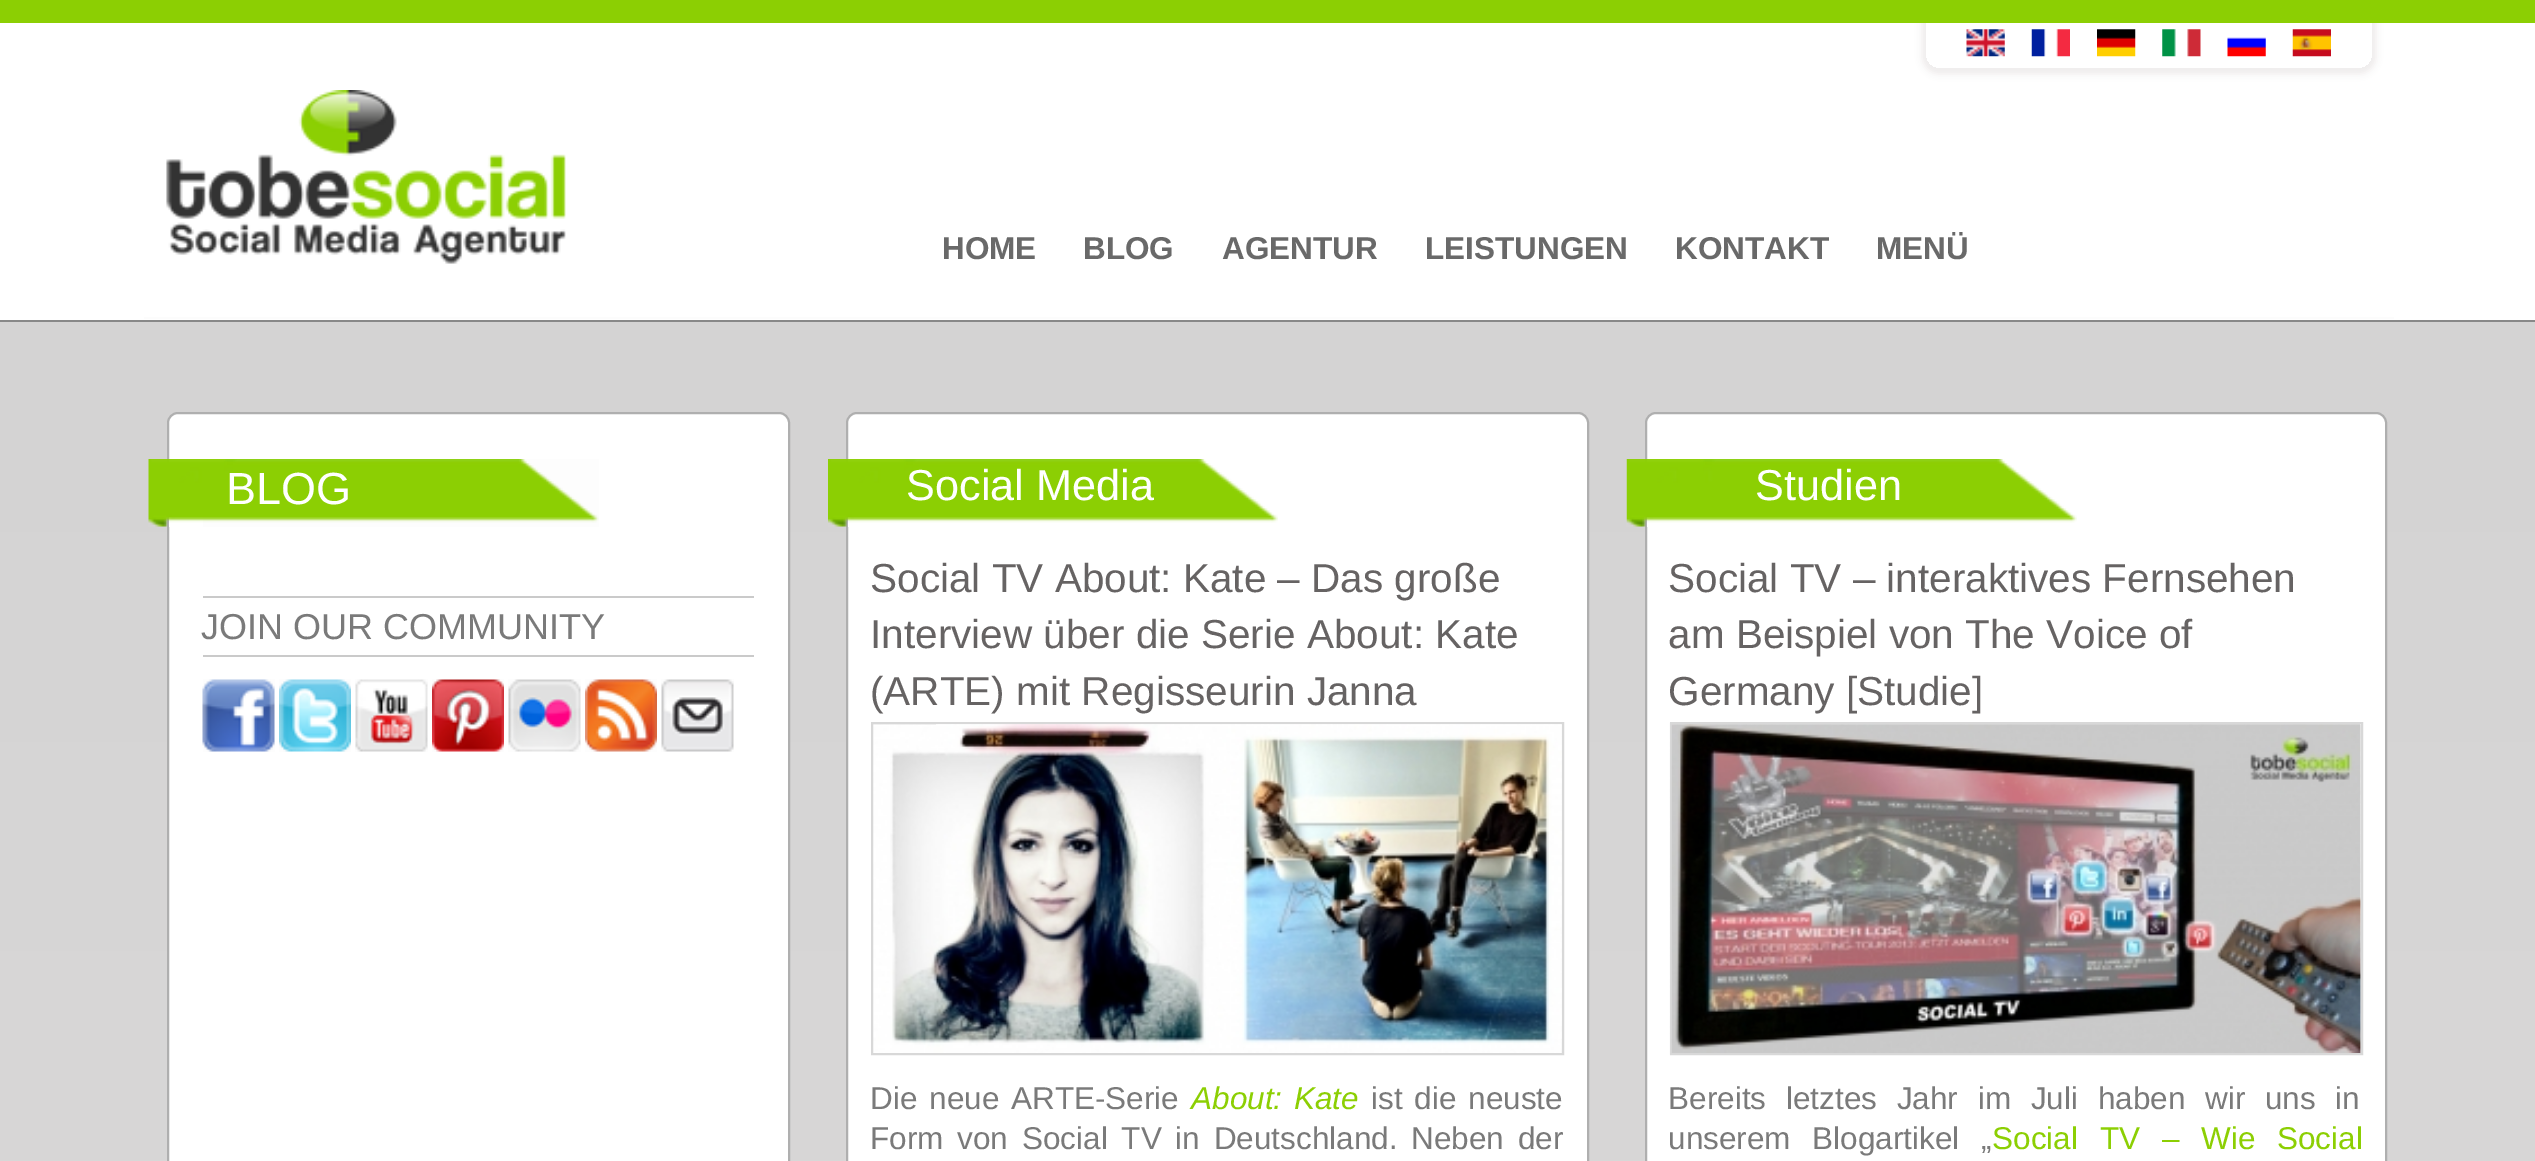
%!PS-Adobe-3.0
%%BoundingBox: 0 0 2535 1161
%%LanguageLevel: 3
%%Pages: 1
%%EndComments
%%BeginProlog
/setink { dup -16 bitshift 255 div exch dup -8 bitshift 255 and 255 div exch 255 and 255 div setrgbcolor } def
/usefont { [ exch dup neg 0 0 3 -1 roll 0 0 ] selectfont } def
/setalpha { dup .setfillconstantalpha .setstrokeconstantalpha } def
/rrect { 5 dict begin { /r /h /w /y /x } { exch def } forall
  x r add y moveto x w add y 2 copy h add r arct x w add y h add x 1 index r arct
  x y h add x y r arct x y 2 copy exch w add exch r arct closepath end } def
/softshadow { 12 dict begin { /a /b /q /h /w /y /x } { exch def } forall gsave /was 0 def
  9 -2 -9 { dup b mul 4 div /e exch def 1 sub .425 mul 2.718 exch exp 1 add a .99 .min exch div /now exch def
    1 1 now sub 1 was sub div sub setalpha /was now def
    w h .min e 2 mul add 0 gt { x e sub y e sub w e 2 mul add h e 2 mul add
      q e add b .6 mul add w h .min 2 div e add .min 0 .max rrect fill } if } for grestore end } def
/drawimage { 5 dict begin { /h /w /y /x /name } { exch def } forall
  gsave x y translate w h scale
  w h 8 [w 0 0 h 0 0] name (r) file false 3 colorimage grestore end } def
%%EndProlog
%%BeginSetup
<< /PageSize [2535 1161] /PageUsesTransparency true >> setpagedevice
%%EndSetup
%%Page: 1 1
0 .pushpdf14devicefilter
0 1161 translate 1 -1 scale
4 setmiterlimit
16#8CCF03 setink
0 0 2535 1161 rectfill
16#FFFFFF setink
0 23 2535 297 rectfill
gsave
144 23 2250 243 rectclip
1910 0 moveto 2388 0 lineto 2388 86 lineto 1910 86 lineto closepath 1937 -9 moveto 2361 -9 lineto 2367 -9 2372 -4 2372 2 curveto 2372 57 lineto 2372 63 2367 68 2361 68 curveto 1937 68 lineto 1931 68 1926 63 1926 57 curveto 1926 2 lineto 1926 -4 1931 -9 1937 -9 curveto closepath eoclip newpath
16#EEECEC setink
1922 -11 454 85 16 3.5 1 softshadow
grestore
(img1.raw) 1966 29 39 28 drawimage
(img2.raw) 2031 29 39 28 drawimage
(img3.raw) 2097 29 39 28 drawimage
(img4.raw) 2162 29 39 28 drawimage
(img5.raw) 2227 37 39 20 drawimage
(img6.raw) 2292 29 39 28 drawimage
(img7.raw) 166 90 400 174 drawimage
/LiberationSans-Bold 31.5 usefont
16#696969 setink
[
    [(HOME) 942 259]
    [(BLOG) 1083 259]
    [(AGENTUR) 1222 259]
    [(LEISTUNGEN) 1425 259]
    [(KONTAKT) 1675 259]
    [(MENÜ) 1876 259]
] { aload pop moveto show } forall
16#FCFCFC setink
144 317 2250 2 rectfill
gsave 0 322 moveto 2535 322 lineto 2535 1161 lineto 0 1161 lineto closepath clip newpath
<< /ShadingType 2 /ColorSpace /DeviceRGB /Coords [1268 322 1268 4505] /Extend [true true] /Function << /FunctionType 2 /Domain [0 1] /C0 [0.831 0.827 0.827] /C1 [0.918 0.914 0.914] /N 1 >> >> shfill grestore
16#888888 setink
0 320 2535 2 rectfill
16#FFFFFF setink
168 413 621 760 10 rrect gsave fill grestore
16#AFAFAF setink
2 setlinewidth
stroke
(img8.raw) 148 459 451 68 drawimage
/LiberationSans-Regular 45 usefont
16#FFFFFF setink
226 504 moveto (BLOG) show
16#CACACA setink
203 596 551 2 rectfill
203 655 551 2 rectfill
/LiberationSans-Regular 36 usefont
16#7A7A7A setink
201 639 moveto (JOIN OUR COMMUNITY) show
(img9.raw) 202 679 73 73 drawimage
(img10.raw) 279 679 72 73 drawimage
(img11.raw) 355 679 73 73 drawimage
(img12.raw) 432 679 72 73 drawimage
(img13.raw) 508 679 73 73 drawimage
(img14.raw) 585 679 72 73 drawimage
(img15.raw) 661 679 73 73 drawimage
16#FFFFFF setink
847 413 741 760 10 rrect gsave fill grestore
16#AFAFAF setink
stroke
(img16.raw) 828 459 450 68 drawimage
/LiberationSans-Regular 43.25 usefont
16#FFFFFF setink
906 500 moveto (Social Media) show
/LiberationSans-Regular 40.5 usefont
16#666363 setink
[
    [(Social TV About: Kate – Das große) 870 592]
    [(Interview über die Serie About: Kate) 870 648]
    [(\(ARTE\) mit Regisseurin Janna) 870 705]
] { aload pop moveto show } forall
(img17.raw) 873 724 689 329 drawimage
16#D8D8D8 setink
872 723 691 331 rectstroke
(img18.raw) 936 724 626 315 drawimage
/LiberationSans-Regular 31.5 usefont
16#7A7A7A setink
870 1109 moveto 3 0 32 (Die neue ARTE-Serie) widthshow
/LiberationSans-Italic 31.5 usefont
16#8CCF03 setink
1191 1109 moveto 3 0 32 (About: Kate) widthshow
/LiberationSans-Regular 31.5 usefont
16#7A7A7A setink
1371 1109 moveto 3 0 32 (ist die neuste) widthshow
870 1149 moveto 5 0 32 (Form von Social TV in Deutschland. Neben der) widthshow
16#FFFFFF setink
1646 413 740 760 10 rrect gsave fill grestore
16#AFAFAF setink
stroke
(img19.raw) 1626 459 451 68 drawimage
/LiberationSans-Regular 43.25 usefont
16#FFFFFF setink
1755 500 moveto (Studien) show
/LiberationSans-Regular 40.5 usefont
16#666363 setink
[
    [(Social TV – interaktives Fernsehen) 1668 592]
    [(am Beispiel von The Voice of) 1668 648]
    [(Germany [Studie]) 1668 705]
] { aload pop moveto show } forall
(img20.raw) 1669 722 692 333 drawimage
16#D8D8D8 setink
1671 723 691 331 rectstroke
(img21.raw) 1671 724 690 329 drawimage
/LiberationSans-Regular 31.5 usefont
16#7A7A7A setink
1668 1109 moveto 11 0 32 (Bereits letztes Jahr im Juli haben wir uns in) widthshow
1668 1149 moveto 13 0 32 (unserem Blogartikel „) widthshow
16#8CCF03 setink
1992 1149 moveto 13 0 32 (Social TV – Wie Social) widthshow
.poppdf14devicefilter showpage
%%EOF
